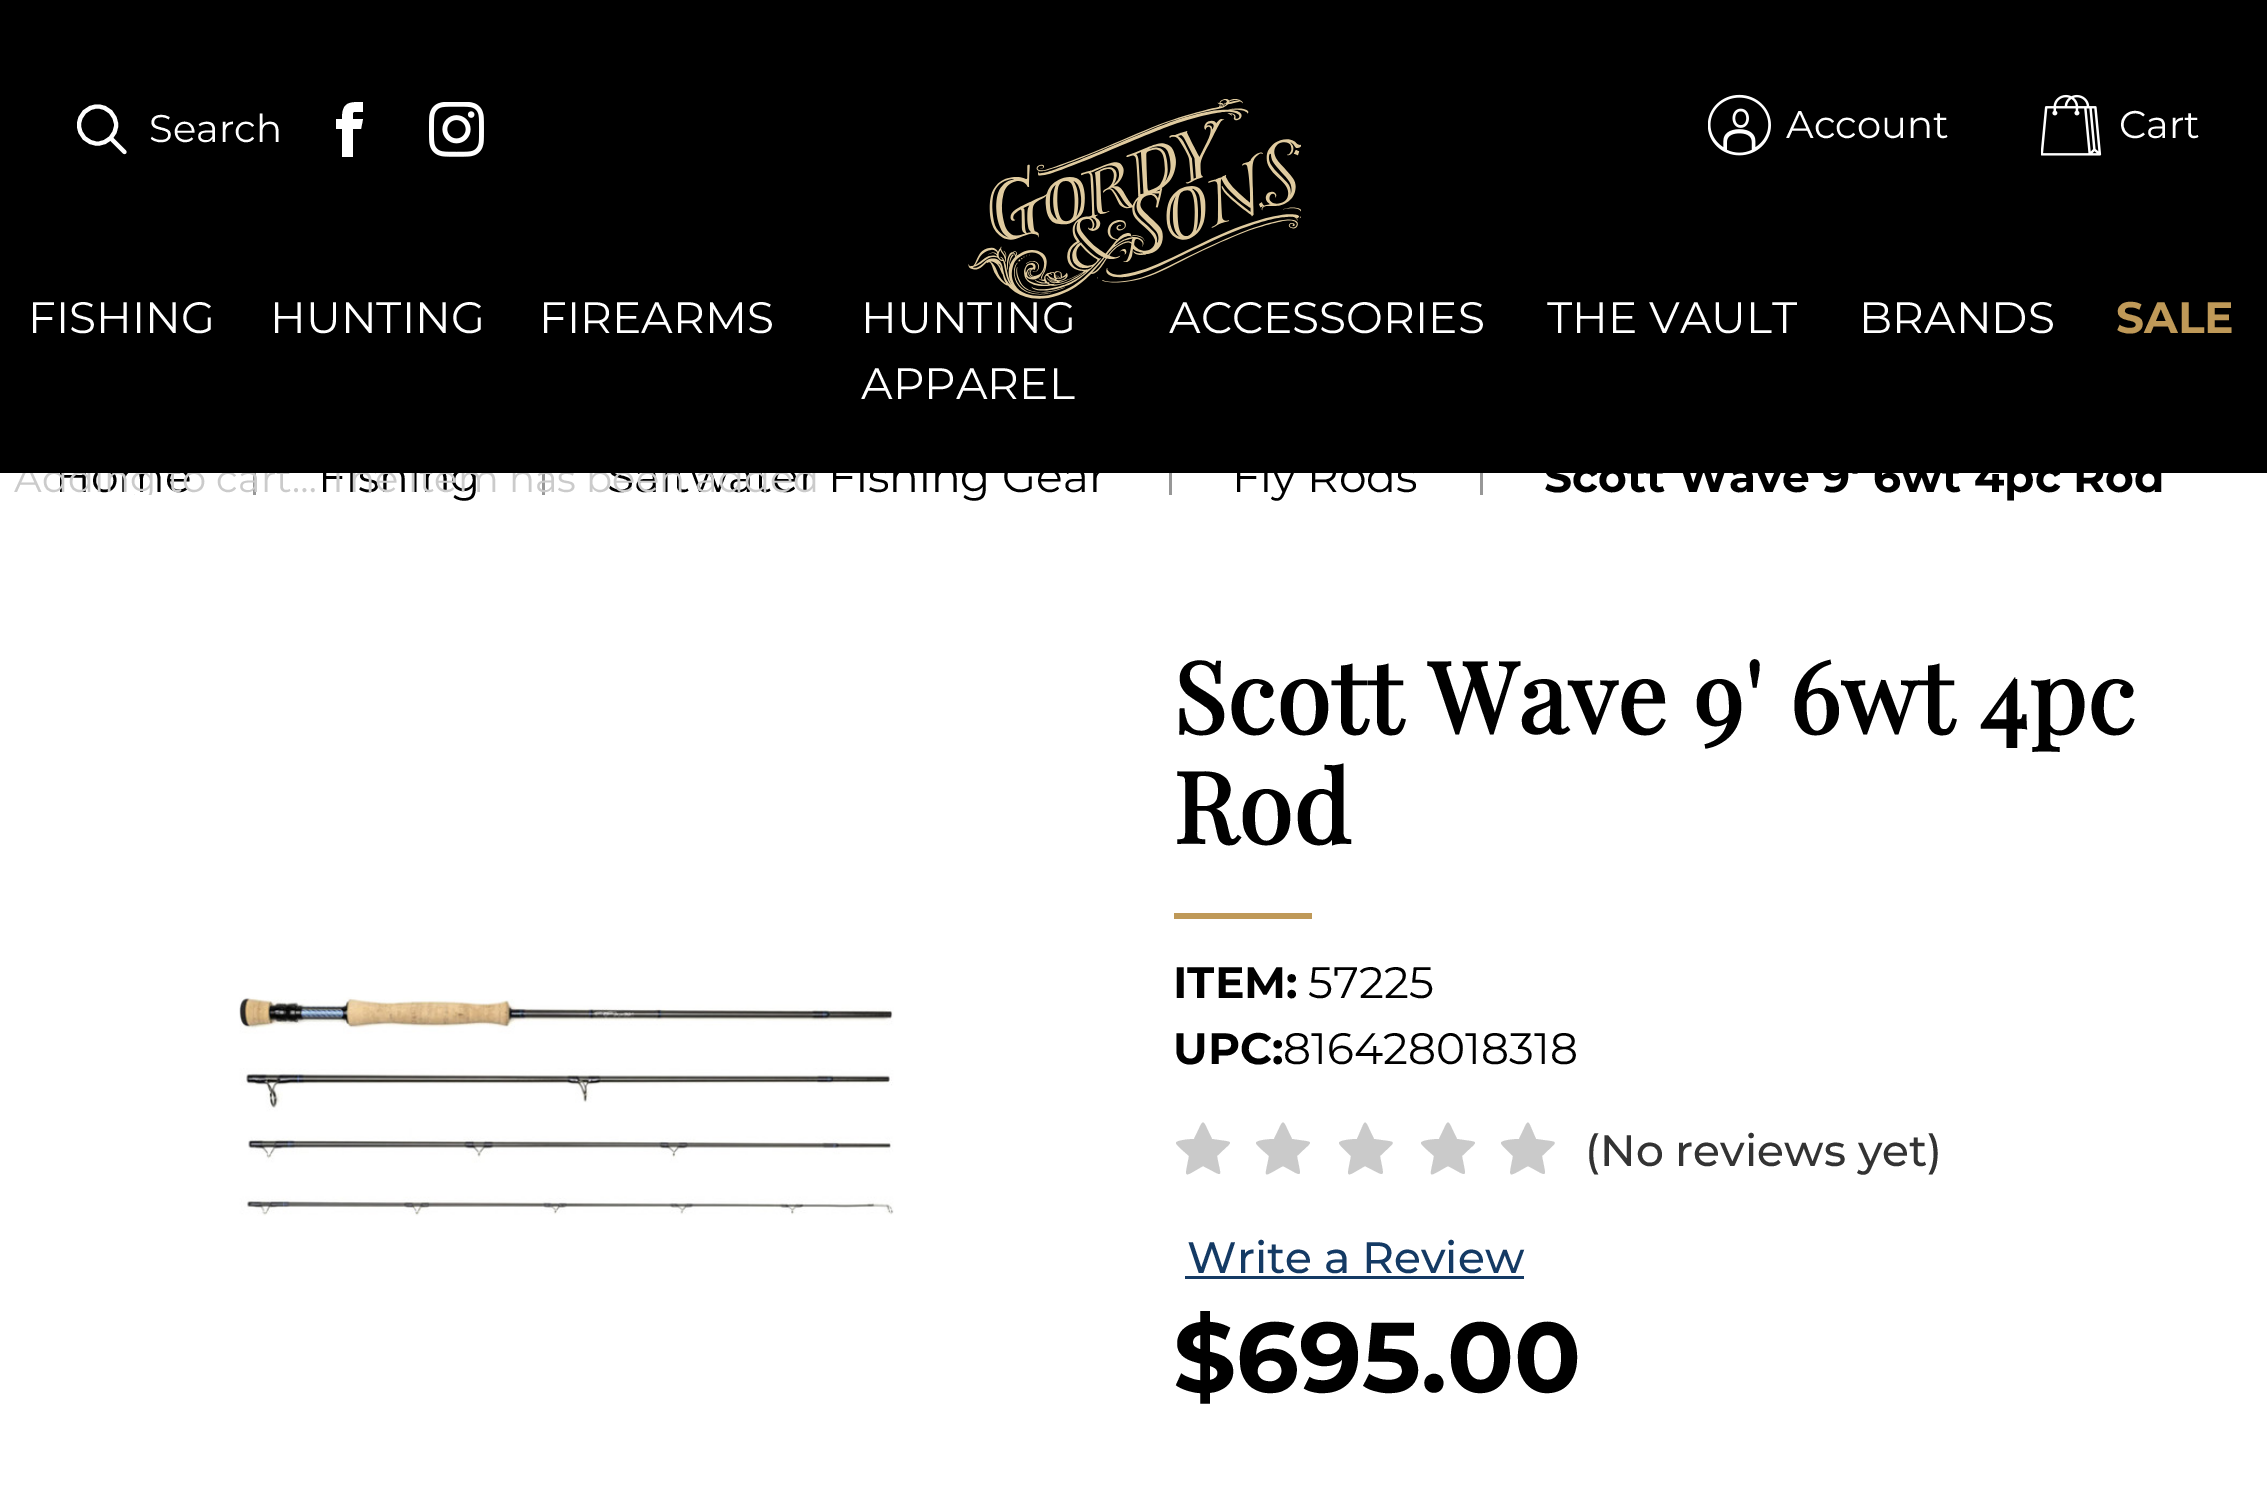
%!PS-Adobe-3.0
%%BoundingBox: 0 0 2267 1487
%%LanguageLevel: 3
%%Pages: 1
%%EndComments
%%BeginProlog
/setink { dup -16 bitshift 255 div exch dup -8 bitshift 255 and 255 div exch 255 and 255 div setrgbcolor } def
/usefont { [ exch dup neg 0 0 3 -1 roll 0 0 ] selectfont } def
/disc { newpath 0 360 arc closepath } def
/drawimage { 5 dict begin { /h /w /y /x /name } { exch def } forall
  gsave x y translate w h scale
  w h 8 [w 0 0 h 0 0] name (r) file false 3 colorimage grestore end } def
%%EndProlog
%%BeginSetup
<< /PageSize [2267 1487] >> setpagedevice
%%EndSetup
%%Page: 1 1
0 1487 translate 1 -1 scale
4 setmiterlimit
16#FFFFFF setink
0 0 2267 1487 rectfill
[
    [253 468 3 27 16#979797]
    [542 468 3 27 16#979797]
    [1169 468 3 27 16#979797]
    [1480 468 3 27 16#979797]
] { aload pop setink rectfill } forall
/Montserrat-Thin 44 usefont
16#000000 setink
[
    [(Home) 55 492]
    [(Fishing) 318 492]
    [(Saltwater Fishing Gear) 607 492]
] { aload pop moveto show } forall
gsave
0 407 1136 88 rectclip
/Montserrat-Thin 38.5 usefont
16#CBCBCB setink
14 492 moveto (Adding to cart… The item has been added) show
grestore
0 0 2267 473 rectfill
(img1.raw) 968 99 333 200 drawimage
16#FFFFFF setink
4.1 setlinewidth
97.5 125 18.5 disc stroke
1 setlinecap
1 setlinejoin
124.5 152 moveto 111 138.5 lineto stroke
/Montserrat-Thin 38.5 usefont
149 142 moveto (Search) show
354 112 moveto 363 112 lineto 363 102 lineto 349 102 342 102 342 119 curveto 336 119 lineto 336 129 lineto 342 129 lineto 342 157 lineto 353 157 lineto 353 129 lineto 361 129 lineto 363 119 lineto 353 119 lineto 353 117 352 112 354 112 curveto closepath fill
(img2.raw) 429 102 55 55 drawimage
(img3.raw) 1708 94 63 62 drawimage
1786 138 moveto (Account) show
(img4.raw) 2041 94 61 62 drawimage
2119 138 moveto (Cart) show
/Montserrat-Thin 44 usefont
[
    [(FISHING) 28 333]
    [(HUNTING) 270 333]
    [(FIREARMS) 539 333]
    [(HUNTING) 861 333]
    [(APPAREL) 861 399]
    [(ACCESSORIES) 1169 333]
    [(THE VAULT) 1547 333]
    [(BRANDS) 1859 333]
] { aload pop moveto show } forall
/Montserrat-Bold 44 usefont
16#BF9958 setink
2116 333 moveto (SALE) show
/Montserrat-Thin 44 usefont
16#000000 setink
1232 492 moveto (Fly Rods) show
/Montserrat-Bold 44 usefont
1544 492 moveto (Scott Wave 9' 6wt 4pc Rod) show
(img5.raw) 239 997 655 219 drawimage
/PlayfairDisplay-Bold 99 usefont
1173 734 moveto 0.7 0 (Scott Wave 9' 6wt 4pc) ashow
1173 844 moveto 0.7 0 (Rod) ashow
16#BF9958 setink
1174 913 138 6 rectfill
/Montserrat-Bold 44 usefont
16#000000 setink
1173 998 moveto (ITEM:) show
/Montserrat-Thin 44 usefont
1308 998 moveto (57225) show
/Montserrat-Bold 44 usefont
1173 1064 moveto (UPC:) show
/Montserrat-Thin 44 usefont
1283 1064 moveto (816428018318) show
16#CACACA setink
1176 1143 moveto 1176 1140 1192 1139 1194 1139 curveto 1205 1117 1201 1117 1212 1139 curveto 1236 1143 1234 1139 1217 1156 curveto 1221 1179 1225 1177 1203 1166 curveto 1182 1178 1185 1179 1189 1156 curveto 1187 1154 1176 1145 1176 1143 curveto closepath fill
1256 1143 moveto 1256 1140 1271 1139 1274 1139 curveto 1285 1117 1281 1117 1292 1139 curveto 1316 1143 1314 1139 1297 1156 curveto 1301 1179 1304 1177 1283 1166 curveto 1261 1178 1265 1179 1269 1156 curveto 1267 1154 1256 1145 1256 1143 curveto closepath fill
1339 1143 moveto 1339 1140 1354 1139 1357 1139 curveto 1367 1117 1363 1117 1374 1139 curveto 1399 1143 1397 1139 1380 1156 curveto 1384 1179 1387 1177 1365 1166 curveto 1344 1178 1347 1179 1351 1156 curveto 1349 1154 1339 1145 1339 1143 curveto closepath fill
1421 1143 moveto 1421 1140 1436 1139 1439 1139 curveto 1450 1117 1446 1117 1457 1139 curveto 1481 1143 1479 1139 1462 1156 curveto 1466 1179 1469 1177 1448 1166 curveto 1426 1178 1430 1179 1434 1156 curveto 1432 1154 1421 1145 1421 1143 curveto closepath fill
1501 1143 moveto 1501 1140 1516 1139 1519 1139 curveto 1530 1117 1526 1117 1536 1139 curveto 1561 1143 1559 1139 1542 1156 curveto 1546 1179 1549 1177 1528 1166 curveto 1506 1178 1509 1179 1513 1156 curveto 1511 1154 1501 1145 1501 1143 curveto closepath fill
/Montserrat-Medium 44 usefont
16#333333 setink
1585 1166 moveto (\(No reviews yet\)) show
16#143A64 setink
1187 1273 moveto (Write a Review) show
1185 1276 339 3 rectfill
/Montserrat-Bold 99 usefont
16#000000 setink
1173 1392 moveto ($695.00) show
showpage
%%EOF
